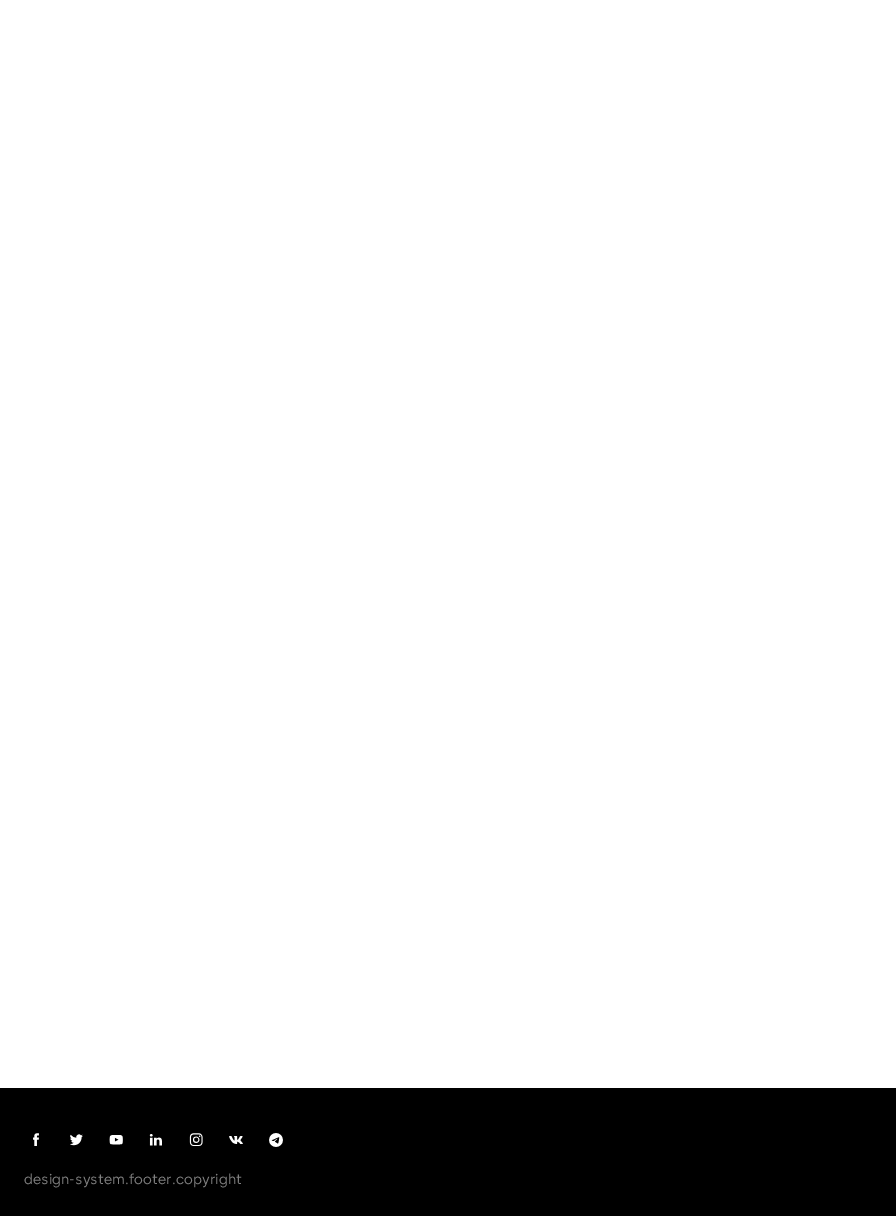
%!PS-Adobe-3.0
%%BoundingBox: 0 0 896 1216
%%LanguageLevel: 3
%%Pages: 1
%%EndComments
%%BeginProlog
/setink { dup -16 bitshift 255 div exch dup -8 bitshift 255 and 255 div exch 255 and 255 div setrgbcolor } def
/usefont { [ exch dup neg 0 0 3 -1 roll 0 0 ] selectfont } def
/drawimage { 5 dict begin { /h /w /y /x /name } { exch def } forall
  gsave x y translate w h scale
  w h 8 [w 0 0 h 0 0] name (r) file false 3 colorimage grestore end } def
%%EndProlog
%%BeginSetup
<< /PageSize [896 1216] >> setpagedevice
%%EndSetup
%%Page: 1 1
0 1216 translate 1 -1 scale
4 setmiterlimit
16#FFFFFF setink
0 0 896 1216 rectfill
16#000000 setink
0 1088 896 128 rectfill
(img1.raw) 33 1133 6 13 drawimage
(img2.raw) 70 1134 13 12 drawimage
(img3.raw) 109 1135 14 10 drawimage
(img4.raw) 149 1134 13 12 drawimage
(img5.raw) 189 1133 14 13 drawimage
(img6.raw) 229 1136 14 8 drawimage
(img7.raw) 269 1133 14 14 drawimage
/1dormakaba-Regular 14 usefont
16#808080 setink
24 1184 moveto 0.15 0 (design-system.footer.copyright) ashow
showpage
%%EOF
